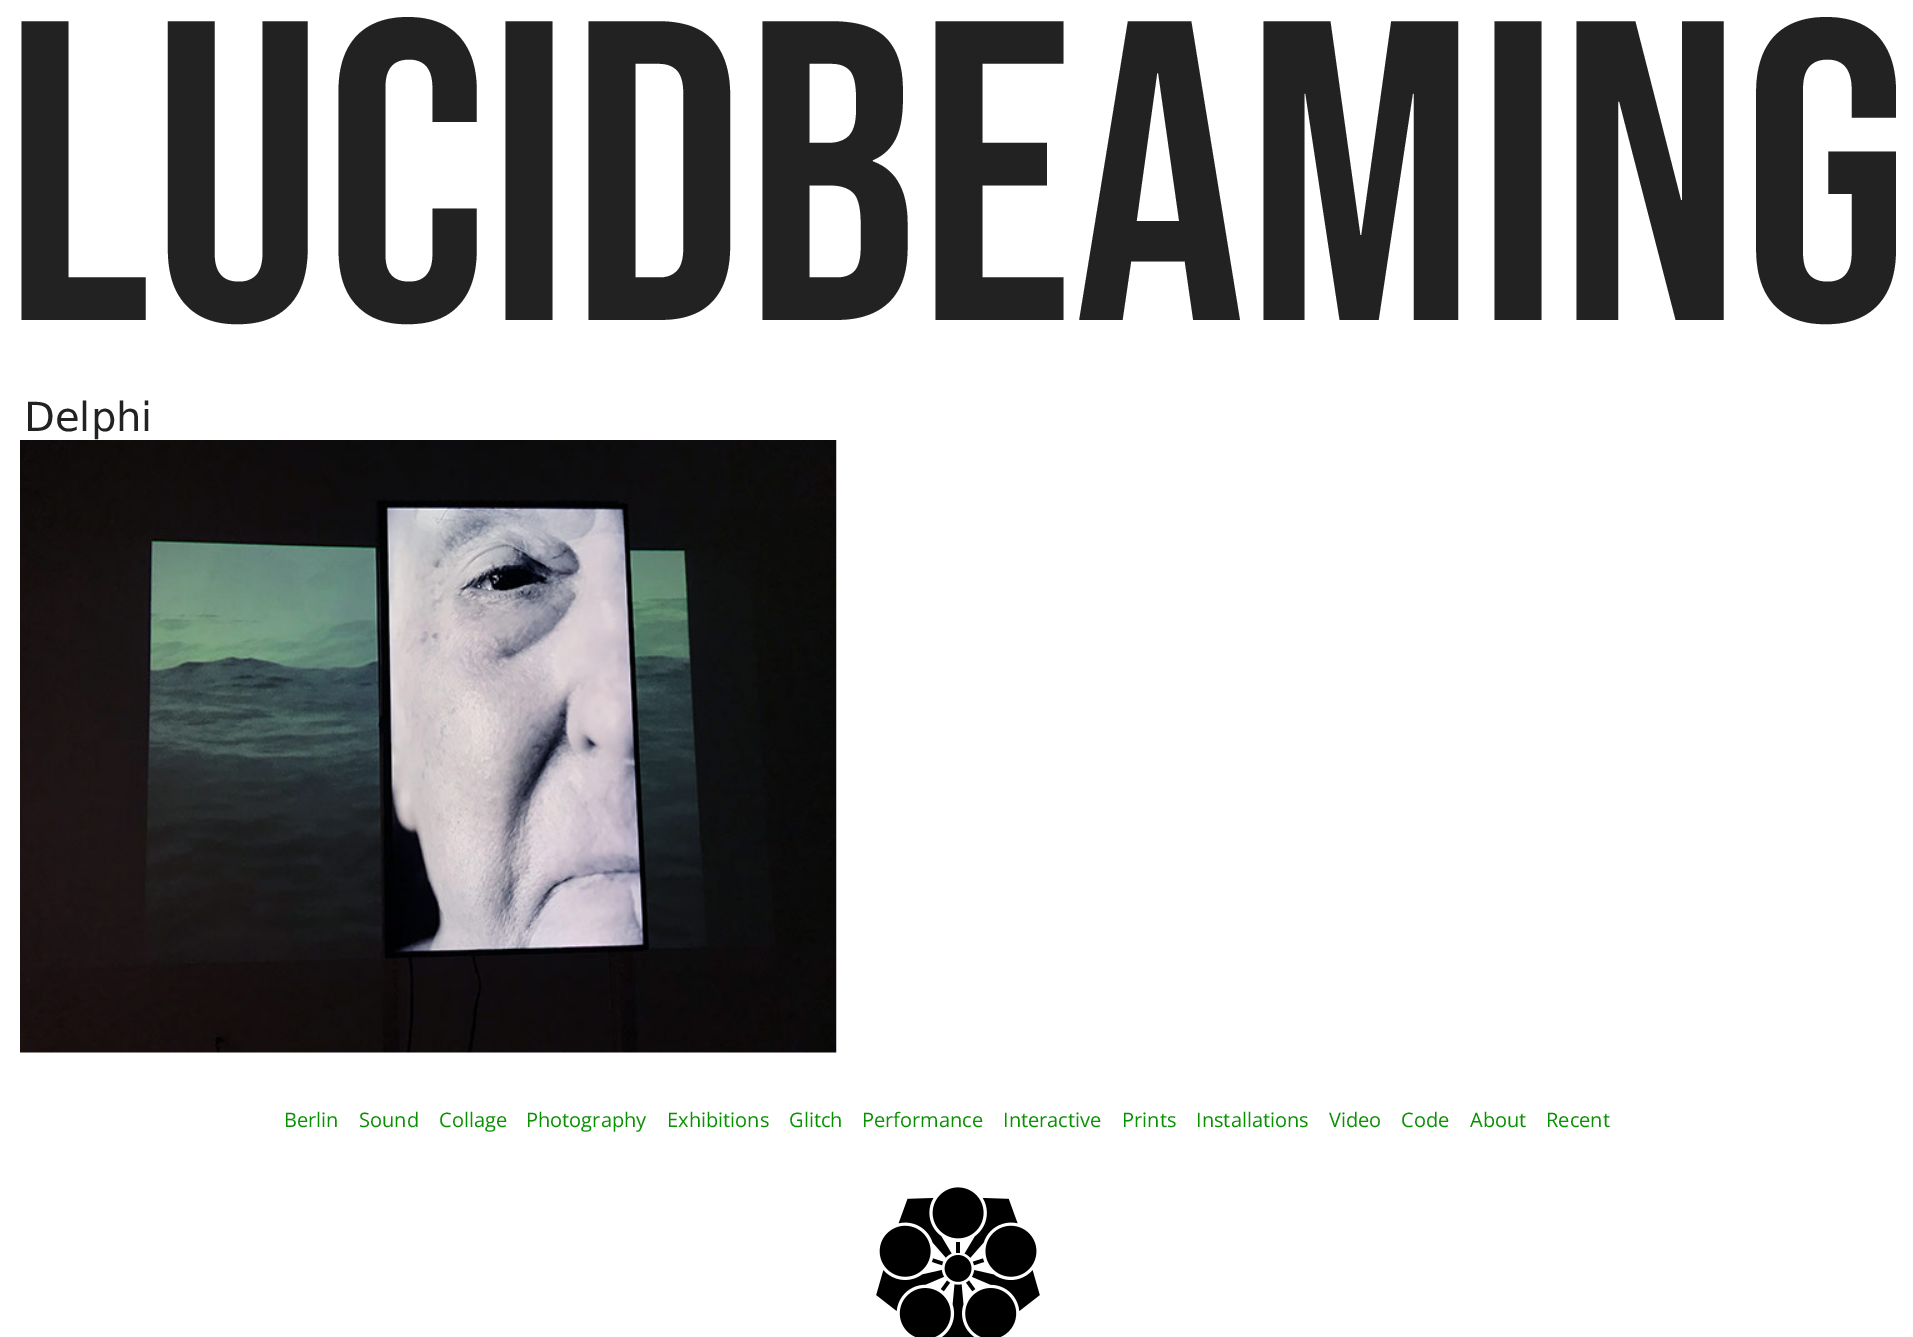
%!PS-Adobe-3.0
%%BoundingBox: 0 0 1913 1337
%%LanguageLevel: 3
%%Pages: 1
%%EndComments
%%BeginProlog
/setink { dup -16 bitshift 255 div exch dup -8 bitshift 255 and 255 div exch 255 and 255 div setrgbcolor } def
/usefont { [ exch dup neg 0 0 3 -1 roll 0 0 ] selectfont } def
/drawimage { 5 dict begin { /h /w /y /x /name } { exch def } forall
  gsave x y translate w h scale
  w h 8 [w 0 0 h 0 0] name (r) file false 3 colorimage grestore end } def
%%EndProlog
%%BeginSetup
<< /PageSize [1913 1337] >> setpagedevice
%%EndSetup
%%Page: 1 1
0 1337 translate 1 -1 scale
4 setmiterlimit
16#FFFFFF setink
0 0 1913 1337 rectfill
/BebasNeue-Regular 429 usefont
16#222222 setink
4 320 moveto (LUCIDBEAMING) show
/DejaVuSans-Regular 40 usefont
24 431 moveto (Delphi) show
(img1.raw) 20 440 817 613 drawimage
/OpenSans-Regular 20 usefont
16#089100 setink
[
    [(Berlin) 284 1127]
    [(Sound) 359 1127]
    [(Collage) 439 1127]
    [(Photography) 526 1127]
    [(Exhibitions) 667 1127]
    [(Glitch) 789 1127]
    [(Performance) 862 1127]
    [(Interactive) 1003 1127]
    [(Prints) 1122 1127]
    [(Installations) 1196 1127]
    [(Video) 1329 1127]
    [(Code) 1401 1127]
    [(About) 1470 1127]
    [(Recent) 1546 1127]
] { aload pop moveto show } forall
(img2.raw) 876 1187 164 150 drawimage
showpage
%%EOF
